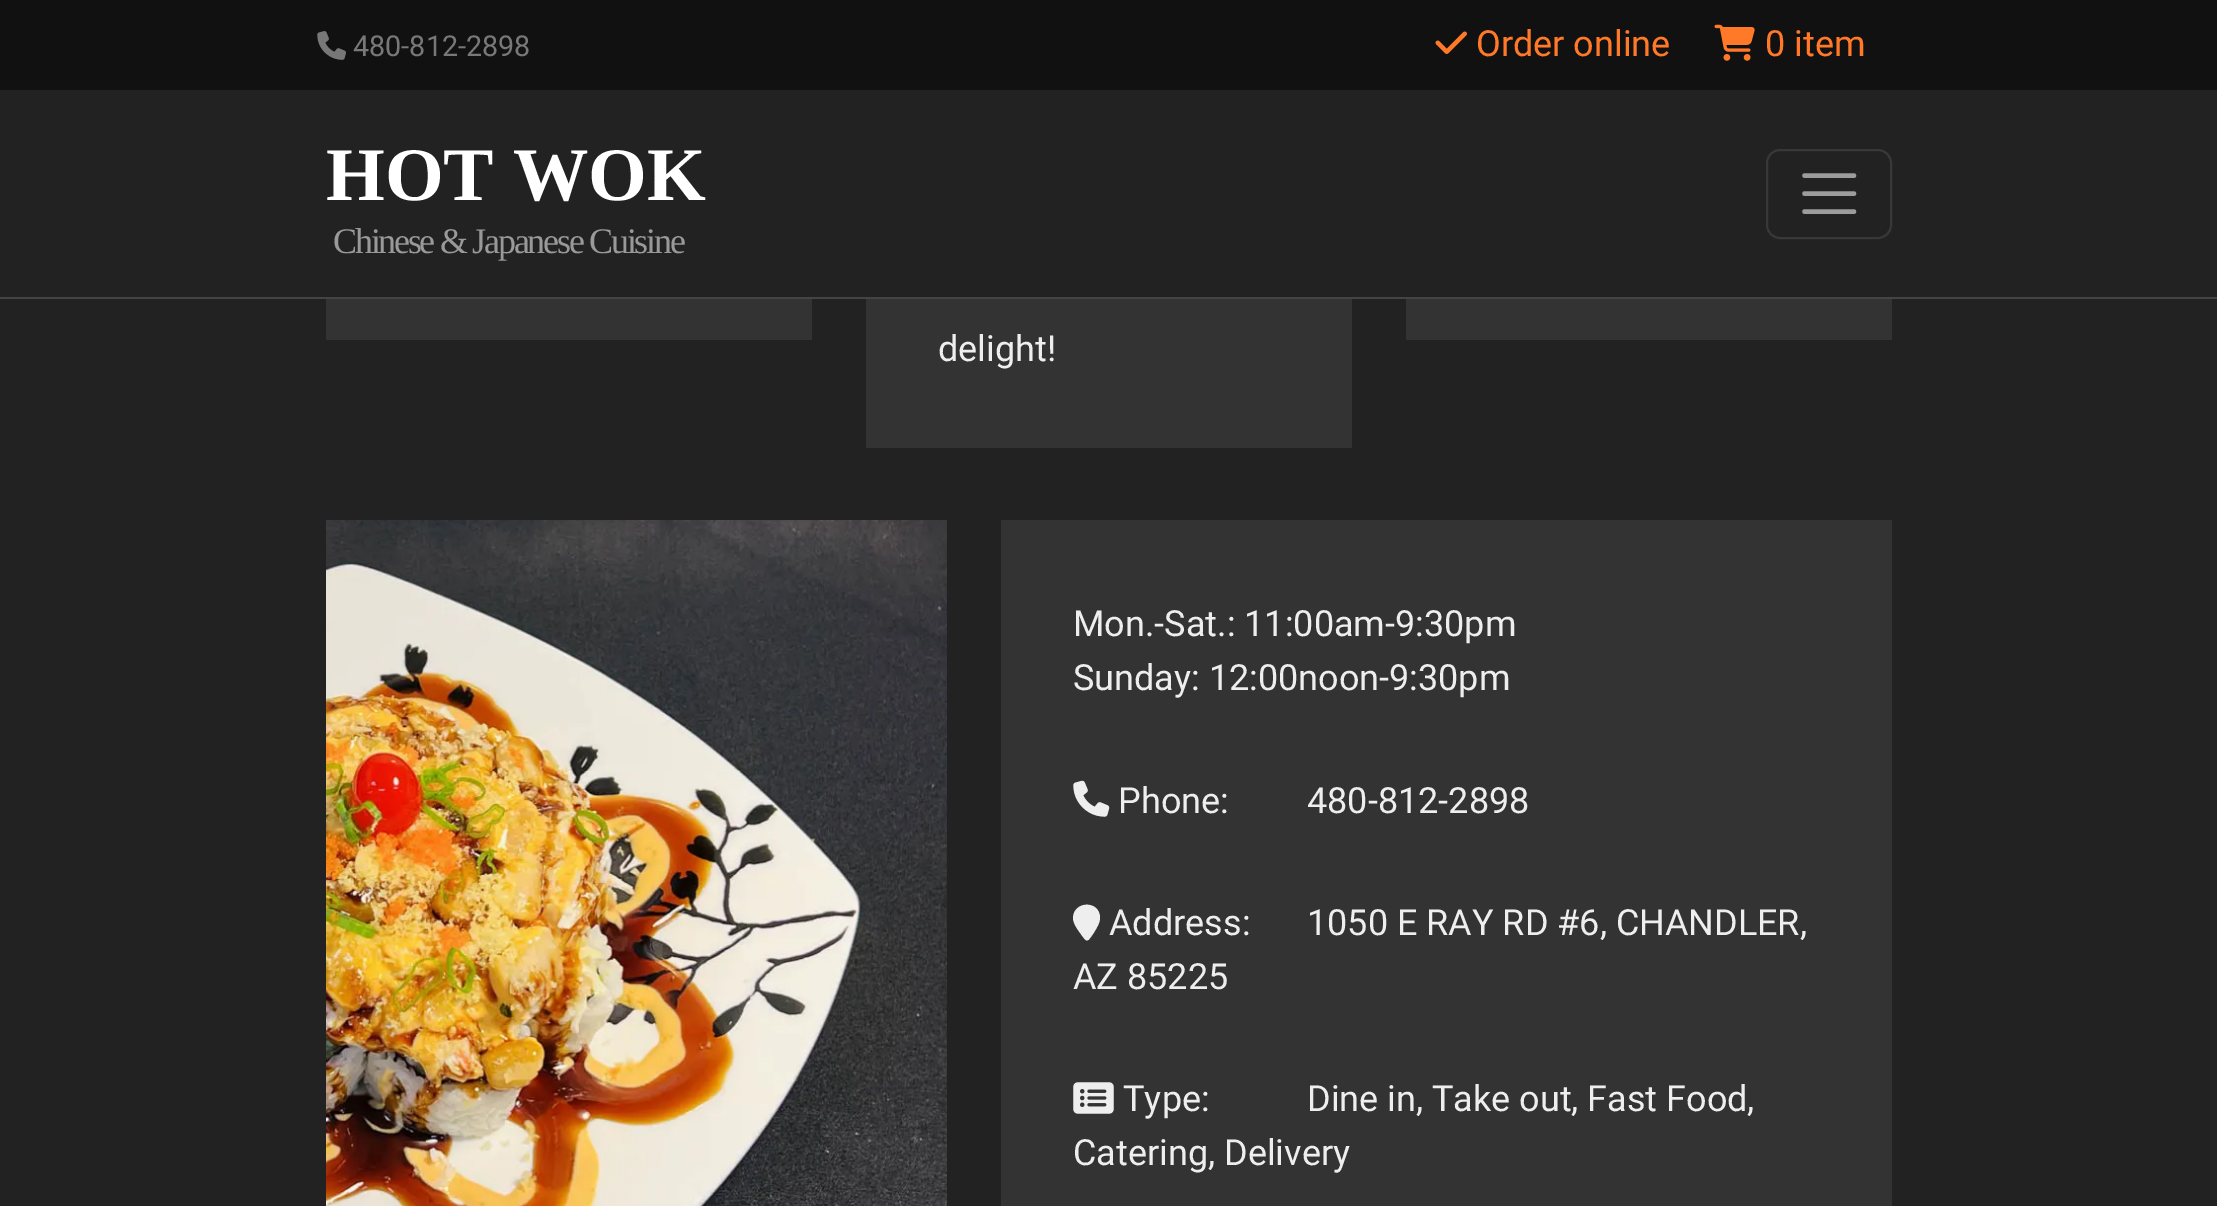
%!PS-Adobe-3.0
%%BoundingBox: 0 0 2217 1206
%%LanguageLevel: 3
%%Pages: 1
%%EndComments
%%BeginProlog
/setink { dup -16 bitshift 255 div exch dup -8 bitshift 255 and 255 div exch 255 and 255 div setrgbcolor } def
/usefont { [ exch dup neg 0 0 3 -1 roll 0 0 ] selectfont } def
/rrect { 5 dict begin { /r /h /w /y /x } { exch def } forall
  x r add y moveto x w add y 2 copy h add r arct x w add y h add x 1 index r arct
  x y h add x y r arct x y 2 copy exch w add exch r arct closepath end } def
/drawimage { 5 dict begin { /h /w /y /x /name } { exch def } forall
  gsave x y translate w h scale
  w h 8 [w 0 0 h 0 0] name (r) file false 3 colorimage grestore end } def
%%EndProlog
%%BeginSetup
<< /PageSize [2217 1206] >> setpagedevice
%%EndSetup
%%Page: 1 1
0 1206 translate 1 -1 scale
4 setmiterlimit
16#222222 setink
0 0 2217 1206 rectfill
16#111111 setink
0 0 2217 90 rectfill
(img1.raw) 317 31 29 29 drawimage
/Roboto-Regular 28.75 usefont
16#787878 setink
353 56 moveto (480-812-2898) show
(img2.raw) 1435 31 32 23 drawimage
/Roboto-Regular 36 usefont
16#FF7928 setink
1476 56 moveto (Order online) show
(img3.raw) 1714 24 41 37 drawimage
1765 56 moveto (0 item) show
16#444444 setink
0 297 2217 2 rectfill
/LiberationSerif-Bold 75.5 usefont
16#FFFFFF setink
326 200 moveto (HOT WOK) show
/LiberationSerif-Regular 36 usefont
16#999999 setink
333 253 moveto -2.25 0 (Chinese & Japanese Cuisine) ashow
16#383838 setink
2 setlinewidth
1767 150 124 88 13 rrect stroke
16#9C9C9C setink
4.5 setlinewidth
1 setlinecap
1804.5 175.5 moveto 1854 175.5 lineto 1804.5 193.5 moveto 1854 193.5 lineto 1804.5 211.5 moveto 1854 211.5 lineto stroke
[
    [326 299 486 41 16#333333]
    [1406 299 486 41 16#333333]
    [866 299 486 149 16#333333]
] { aload pop setink rectfill } forall
/Roboto-Regular 36 usefont
16#EEEEEE setink
938 361 moveto (delight!) show
(img4.raw) 326 520 621 686 drawimage
16#333333 setink
1001 520 891 686 rectfill
16#EEEEEE setink
1073 636 moveto (Mon.-Sat.: 11:00am-9:30pm) show
1073 690 moveto (Sunday: 12:00noon-9:30pm) show
(img5.raw) 1073 780 37 37 drawimage
1118 813 moveto (Phone:) show
1307 813 moveto (480-812-2898) show
1100 918 moveto 1100 923 1096.5 928 1094 932.5 curveto 1087 942.5 1087.5 943.5 1080.5 933.5 curveto 1077.5 929.5 1073 923 1073 918 curveto 1073.5 900.5 1100 900 1100 918 curveto closepath fill
[
    [(Address:) 1109 935]
    [(1050 E RAY RD #6, CHANDLER,) 1307 935]
    [(AZ 85225) 1073 989]
] { aload pop moveto show } forall
(img6.raw) 1073 1082 41 32 drawimage
[
    [(Type:) 1123 1111]
    [(Dine in, Take out, Fast Food,) 1307 1111]
    [(Catering, Delivery) 1073 1165]
] { aload pop moveto show } forall
showpage
%%EOF
